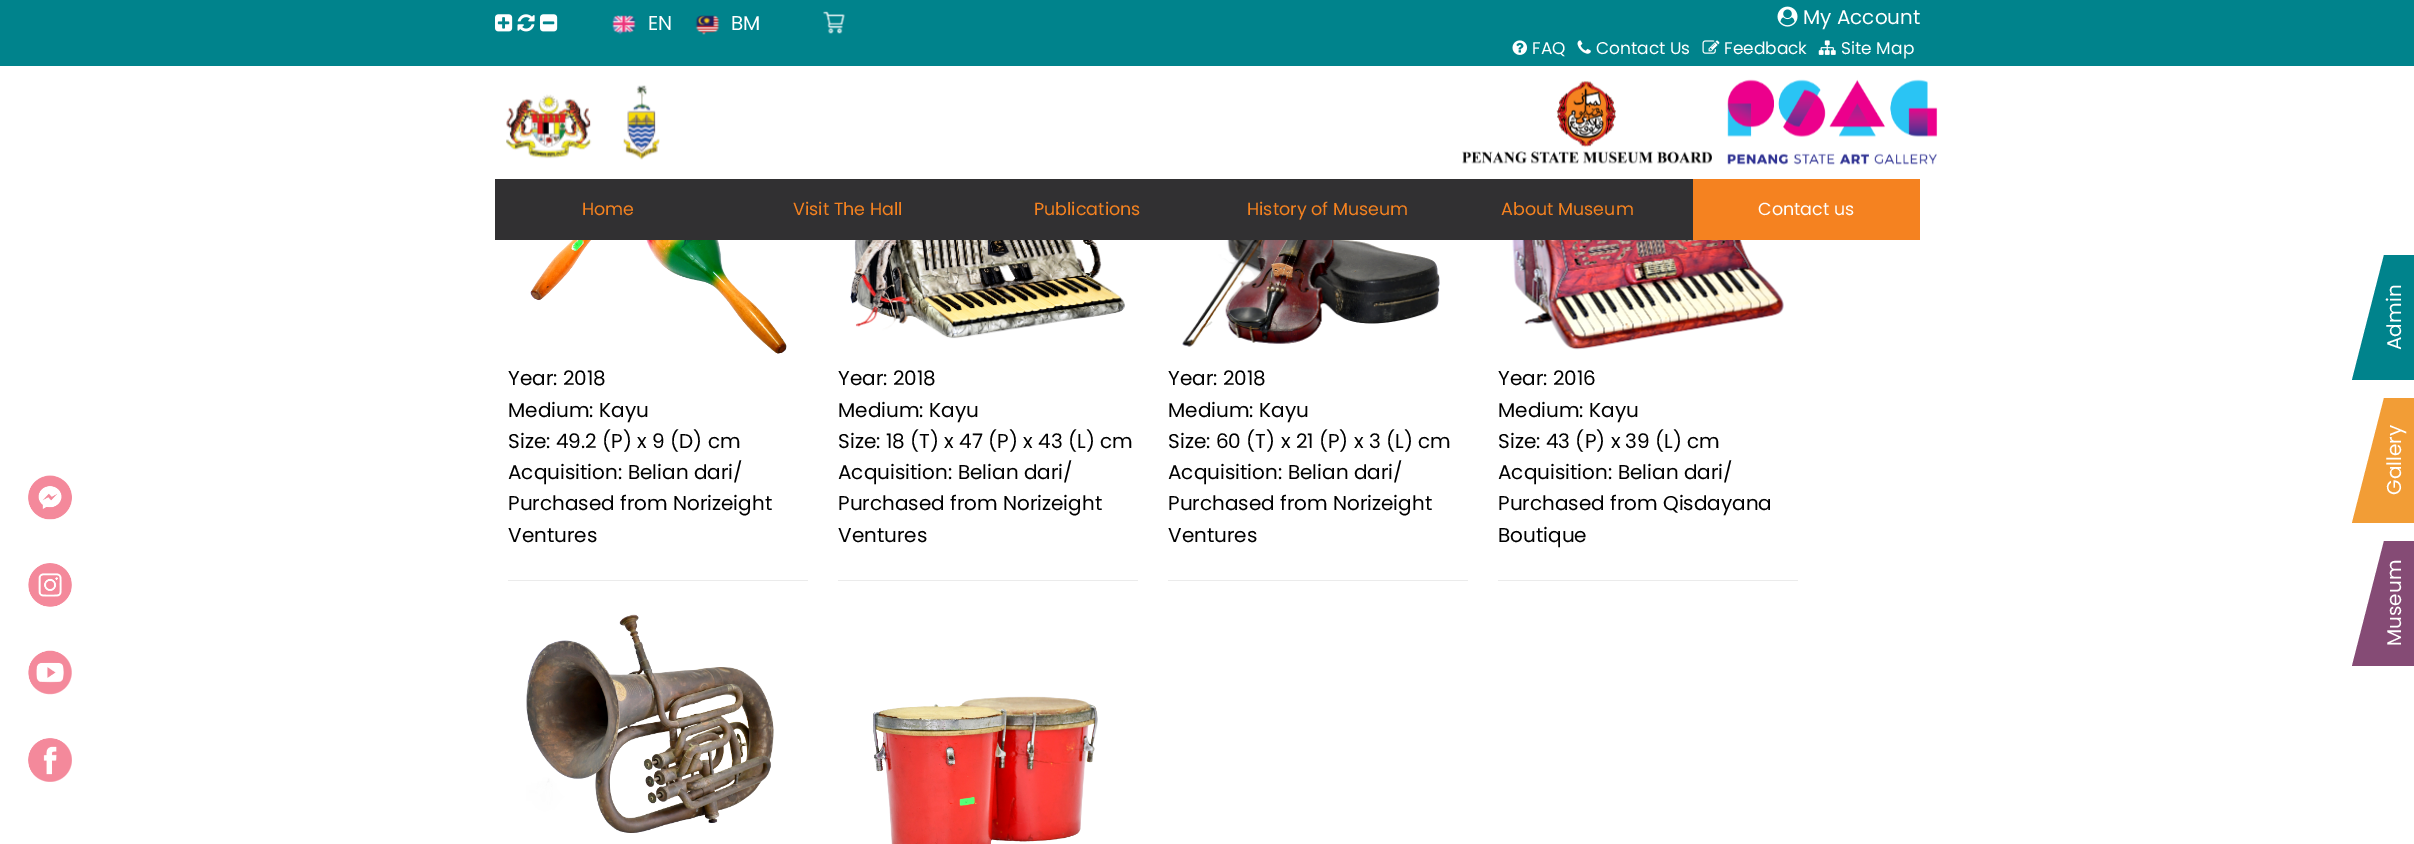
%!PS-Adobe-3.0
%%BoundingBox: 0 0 2414 844
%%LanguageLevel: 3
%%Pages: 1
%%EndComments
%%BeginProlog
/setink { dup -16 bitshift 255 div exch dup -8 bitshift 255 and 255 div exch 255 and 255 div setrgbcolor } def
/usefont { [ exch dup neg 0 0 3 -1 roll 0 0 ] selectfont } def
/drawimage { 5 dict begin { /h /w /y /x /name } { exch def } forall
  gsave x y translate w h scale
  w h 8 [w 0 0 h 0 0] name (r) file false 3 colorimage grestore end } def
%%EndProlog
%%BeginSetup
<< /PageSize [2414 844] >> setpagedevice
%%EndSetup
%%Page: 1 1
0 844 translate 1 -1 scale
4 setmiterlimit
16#FFFFFF setink
0 0 2414 844 rectfill
16#00838C setink
0 0 2414 66 rectfill
(img1.raw) 495 14 18 18 drawimage
(img2.raw) 517 14 18 18 drawimage
(img3.raw) 540 14 18 18 drawimage
(img4.raw) 612 15 24 20 drawimage
/Poppins-Regular 20 usefont
16#FFFFFF setink
648 30 moveto (EN) show
(img5.raw) 695 15 25 20 drawimage
731 30 moveto (BM) show
(img6.raw) 823 11 22 23 drawimage
(img7.raw) 1777 6 21 21 drawimage
1803 24 moveto (My Account) show
(img8.raw) 1512 40 16 15 drawimage
/Poppins-Regular 17 usefont
1532 54 moveto (FAQ) show
(img9.raw) 1577 40 14 14 drawimage
1596 54 moveto (Contact Us) show
(img10.raw) 1702 40 18 14 drawimage
1724 54 moveto (Feedback) show
(img11.raw) 1818 40 18 15 drawimage
1841 54 moveto (Site Map) show
(img12.raw) 506 85 154 75 drawimage
(img13.raw) 1462 81 250 83 drawimage
(img14.raw) 1727 79 211 86 drawimage
16#313032 setink
495 179 1198 61 rectfill
/Poppins-Regular 17.5 usefont
16#F58220 setink
[
    [(Home) 582 215]
    [(Visit The Hall) 793 215]
    [(Publications) 1034 215]
    [(History of Museum) 1247 215]
    [(About Museum) 1501 215]
] { aload pop moveto show } forall
1693 179 227 61 rectfill
16#FFFFFF setink
1758 215 moveto (Contact us) show
(img15.raw) 28 475 44 45 drawimage
(img16.raw) 28 563 44 44 drawimage
(img17.raw) 28 650 44 45 drawimage
(img18.raw) 28 738 44 44 drawimage
16#EBEBEB setink
508 580 300 1 rectfill
(img19.raw) 530 240 257 114 drawimage
/Poppins-Regular 20 usefont
16#000000 setink
[
    [(Year: 2018) 508 385]
    [(Medium: Kayu) 508 417]
    [(Size: 49.2 \(P\) x 9 \(D\) cm) 508 448]
    [(Acquisition: Belian dari/) 508 479]
    [(Purchased from Norizeight) 508 510]
    [(Ventures) 508 542]
] { aload pop moveto show } forall
16#EBEBEB setink
838 580 300 1 rectfill
(img20.raw) 850 240 275 99 drawimage
16#000000 setink
[
    [(Year: 2018) 838 385]
    [(Medium: Kayu) 838 417]
    [(Size: 18 \(T\) x 47 \(P\) x 43 \(L\) cm) 838 448]
    [(Acquisition: Belian dari/) 838 479]
    [(Purchased from Norizeight) 838 510]
    [(Ventures) 838 542]
] { aload pop moveto show } forall
16#EBEBEB setink
1168 580 300 1 rectfill
(img21.raw) 1182 240 258 107 drawimage
16#000000 setink
[
    [(Year: 2018) 1168 385]
    [(Medium: Kayu) 1168 417]
    [(Size: 60 \(T\) x 21 \(P\) x 3 \(L\) cm) 1168 448]
    [(Acquisition: Belian dari/) 1168 479]
    [(Purchased from Norizeight) 1168 510]
    [(Ventures) 1168 542]
] { aload pop moveto show } forall
16#EBEBEB setink
1498 580 300 1 rectfill
(img22.raw) 1511 240 273 110 drawimage
16#000000 setink
[
    [(Year: 2016) 1498 385]
    [(Medium: Kayu) 1498 417]
    [(Size: 43 \(P\) x 39 \(L\) cm) 1498 448]
    [(Acquisition: Belian dari/) 1498 479]
    [(Purchased from Qisdayana) 1498 510]
    [(Boutique) 1498 542]
] { aload pop moveto show } forall
(img23.raw) 526 614 248 219 drawimage
(img24.raw) 873 696 225 148 drawimage
16#00838C setink
2352 380 moveto 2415 380 lineto 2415 255 lineto 2384 255 lineto closepath fill
16#FFFFFF setink
gsave 2401 350 translate -90 rotate 0 0 moveto (Admin) show grestore
16#F29D36 setink
2352 523 moveto 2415 523 lineto 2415 398 lineto 2384 398 lineto closepath fill
16#FFFFFF setink
gsave 2401 495 translate -90 rotate 0 0 moveto (Gallery) show grestore
16#854B75 setink
2352 666 moveto 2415 666 lineto 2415 541 lineto 2384 541 lineto closepath fill
16#FFFFFF setink
gsave 2401 646 translate -90 rotate 0 0 moveto (Museum) show grestore
showpage
%%EOF
